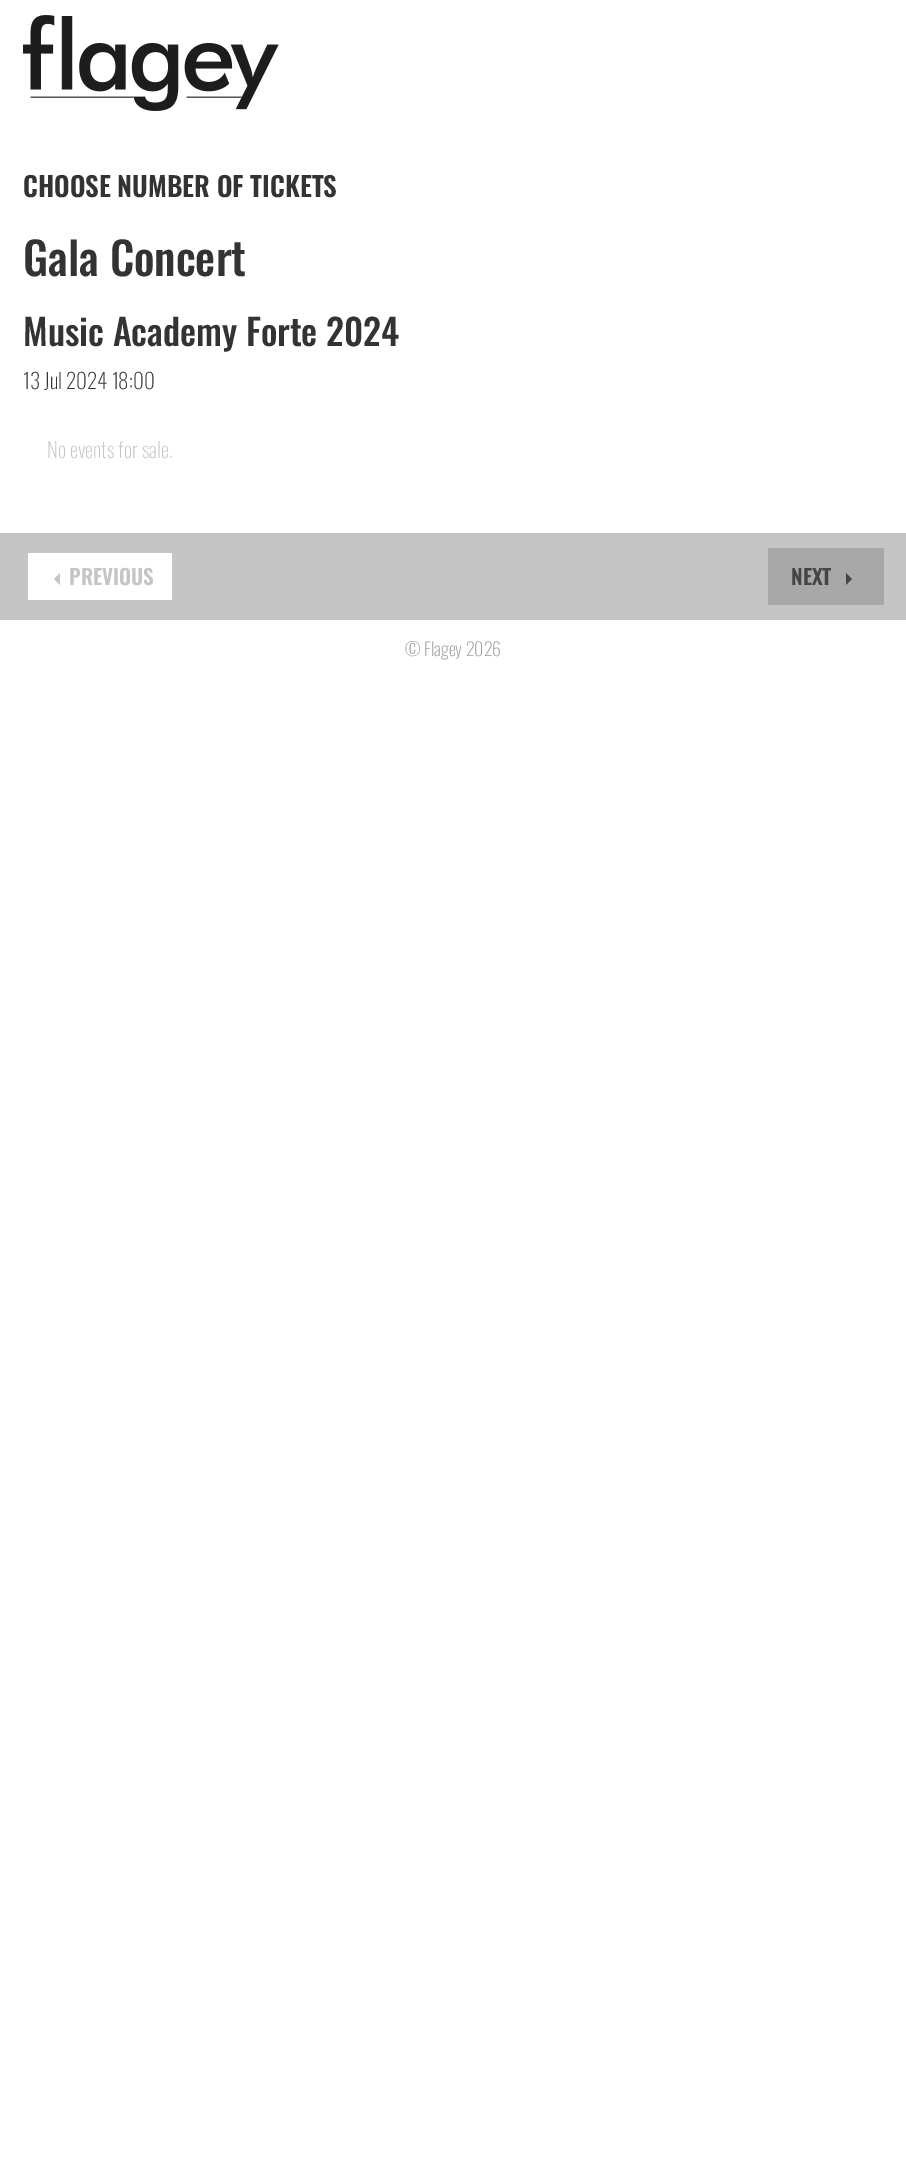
%!PS-Adobe-3.0
%%BoundingBox: 0 0 906 2178
%%LanguageLevel: 3
%%Pages: 1
%%EndComments
%%BeginProlog
/setink { dup -16 bitshift 255 div exch dup -8 bitshift 255 and 255 div exch 255 and 255 div setrgbcolor } def
/usefont { [ exch dup neg 0 0 3 -1 roll 0 0 ] selectfont } def
/drawimage { 5 dict begin { /h /w /y /x /name } { exch def } forall
  gsave x y translate w h scale
  w h 8 [w 0 0 h 0 0] name (r) file false 3 colorimage grestore end } def
%%EndProlog
%%BeginSetup
<< /PageSize [906 2178] >> setpagedevice
%%EndSetup
%%Page: 1 1
0 2178 translate 1 -1 scale
4 setmiterlimit
16#FFFFFF setink
0 0 906 2178 rectfill
(img1.raw) 23 15 256 96 drawimage
/Oswald-SemiBold 27 usefont
16#333333 setink
23 197 moveto (CHOOSE NUMBER OF TICKETS) show
/Oswald-Medium 45 usefont
23 276 moveto (Gala Concert) show
/Oswald-Medium 36 usefont
23 346 moveto (Music Academy Forte 2024) show
/Oswald-ExtraLight 21 usefont
23 389 moveto (13 Jul 2024 18:00) show
16#C5C5C5 setink
47 458 moveto (No events for sale.) show
0 533 906 87 rectfill
16#FFFFFF setink
28 553 144 47 rectfill
16#C5C5C5 setink
60 573 moveto 60 585 lineto 54 579 lineto closepath fill
/Oswald-SemiBold 21 usefont
69 585 moveto (PREVIOUS) show
16#A8A8A8 setink
768 548 116 57 rectfill
16#454545 setink
791 585 moveto (NEXT) show
846 585 moveto 846 573 lineto 852 579 lineto closepath fill
/Oswald-ExtraLight 18 usefont
16#999999 setink
405 656 moveto (© Flagey 2026) show
showpage
%%EOF
